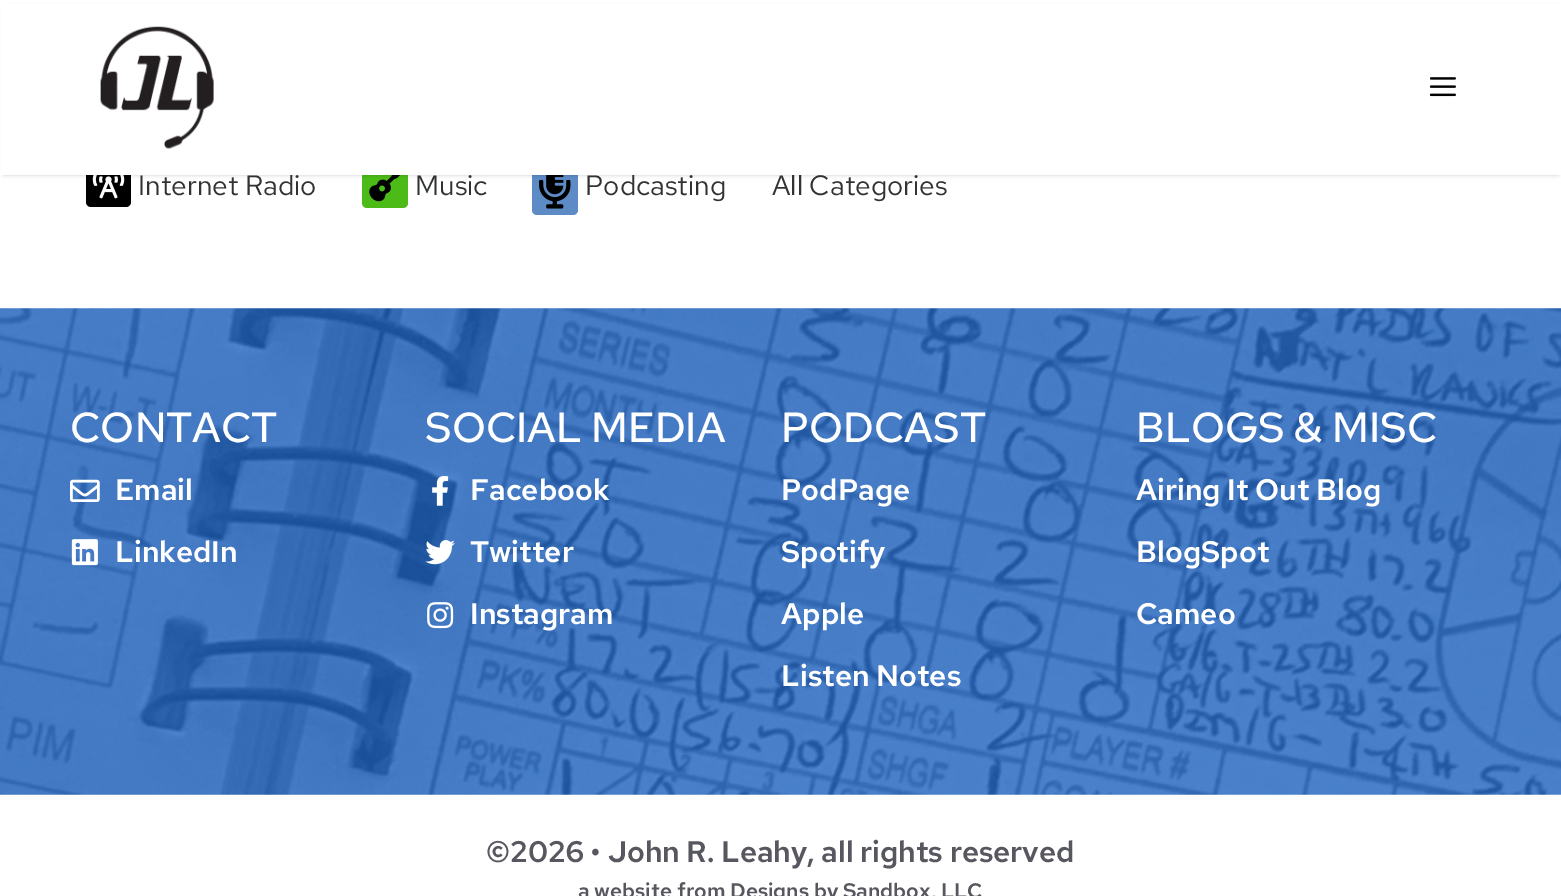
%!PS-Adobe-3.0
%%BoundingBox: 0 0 1561 896
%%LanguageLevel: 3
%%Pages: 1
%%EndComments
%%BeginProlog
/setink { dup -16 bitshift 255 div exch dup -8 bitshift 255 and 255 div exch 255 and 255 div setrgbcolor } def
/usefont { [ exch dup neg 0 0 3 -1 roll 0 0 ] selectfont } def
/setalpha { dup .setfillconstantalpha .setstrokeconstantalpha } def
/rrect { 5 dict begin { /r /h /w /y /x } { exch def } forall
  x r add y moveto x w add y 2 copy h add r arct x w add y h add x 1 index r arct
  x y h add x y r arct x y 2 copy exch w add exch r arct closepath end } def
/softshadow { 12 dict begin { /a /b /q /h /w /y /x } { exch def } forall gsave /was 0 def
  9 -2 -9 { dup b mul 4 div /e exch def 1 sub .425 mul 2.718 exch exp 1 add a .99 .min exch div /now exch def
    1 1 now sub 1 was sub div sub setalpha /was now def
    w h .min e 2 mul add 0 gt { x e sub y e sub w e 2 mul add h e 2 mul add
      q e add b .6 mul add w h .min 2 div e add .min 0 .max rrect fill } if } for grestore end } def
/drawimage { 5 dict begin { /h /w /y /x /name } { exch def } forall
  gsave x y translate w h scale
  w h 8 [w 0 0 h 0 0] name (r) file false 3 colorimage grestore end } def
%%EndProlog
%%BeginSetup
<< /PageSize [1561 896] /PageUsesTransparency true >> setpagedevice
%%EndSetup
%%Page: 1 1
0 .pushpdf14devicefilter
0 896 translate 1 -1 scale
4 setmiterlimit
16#FFFFFF setink
0 0 1561 896 rectfill
16#000000 setink
86 166 45 41 5 rrect fill
(img3.raw) 92 175 33 24 drawimage
16#4CBB17 setink
362 163 46 45 5 rrect fill
(img4.raw) 369 175 31 27 drawimage
16#5D8BC6 setink
532 156 46 59 5 rrect fill
(img5.raw) 539 175 32 34 drawimage
16#000000 setink
4 7 1554 168 0 2 0.2 softshadow
/RedHatText-Regular 28 usefont
16#313233 setink
[
    [(Internet Radio) 138 195]
    [(Podcasting) 585 195]
    [(All Categories) 772 195]
] { aload pop moveto show } forall
16#FFFFFF setink
1 4 1560 171 rectfill
(img1.raw) 100 26 114 123 drawimage
(img2.raw) 1430 77 26 20 drawimage
16#313233 setink
415 195 moveto (Music) show
(img6.raw) 0 308 1561 487 drawimage
/RedHatText-Medium 42 usefont
16#FFFFFF setink
70 442 moveto (CONTACT) show
(img7.raw) 70 479 30 23 drawimage
/RedHatText-SemiBold 29.75 usefont
115 500 moveto (Email) show
(img8.raw) 71 539 27 27 drawimage
115 562 moveto (LinkedIn) show
/RedHatText-Medium 42 usefont
425 442 moveto (SOCIAL MEDIA) show
(img9.raw) 432 476 17 30 drawimage
/RedHatText-SemiBold 29.75 usefont
470 500 moveto (Facebook) show
(img10.raw) 425 540 30 25 drawimage
470 562 moveto (Twitter) show
(img11.raw) 427 602 27 27 drawimage
470 624 moveto (Instagram) show
/RedHatText-Medium 42 usefont
781 442 moveto (PODCAST) show
/RedHatText-SemiBold 29.75 usefont
[
    [(PodPage) 781 500]
    [(Spotify) 781 562]
    [(Apple) 781 624]
    [(Listen Notes) 781 686]
] { aload pop moveto show } forall
/RedHatText-Medium 42 usefont
1136 442 moveto (BLOGS & MISC) show
/RedHatText-SemiBold 29.75 usefont
[
    [(Airing It Out Blog) 1136 500]
    [(BlogSpot) 1136 562]
    [(Cameo) 1136 624]
] { aload pop moveto show } forall
16#575760 setink
486 862 moveto (©2026 • John R. Leahy, all rights reserved) show
/RedHatText-SemiBold 21 usefont
578 898 moveto (a website from Designs by Sandbox, LLC) show
.poppdf14devicefilter showpage
%%EOF
